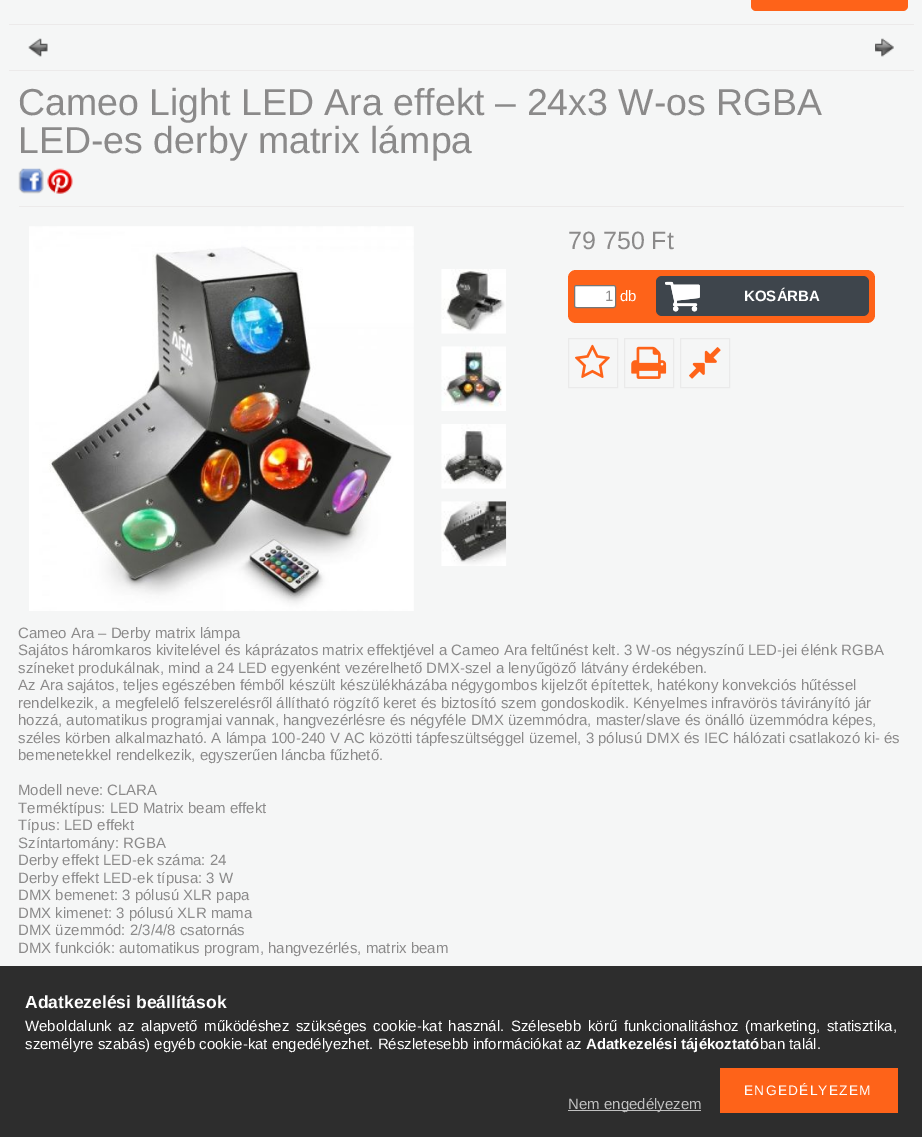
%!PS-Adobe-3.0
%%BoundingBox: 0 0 922 1137
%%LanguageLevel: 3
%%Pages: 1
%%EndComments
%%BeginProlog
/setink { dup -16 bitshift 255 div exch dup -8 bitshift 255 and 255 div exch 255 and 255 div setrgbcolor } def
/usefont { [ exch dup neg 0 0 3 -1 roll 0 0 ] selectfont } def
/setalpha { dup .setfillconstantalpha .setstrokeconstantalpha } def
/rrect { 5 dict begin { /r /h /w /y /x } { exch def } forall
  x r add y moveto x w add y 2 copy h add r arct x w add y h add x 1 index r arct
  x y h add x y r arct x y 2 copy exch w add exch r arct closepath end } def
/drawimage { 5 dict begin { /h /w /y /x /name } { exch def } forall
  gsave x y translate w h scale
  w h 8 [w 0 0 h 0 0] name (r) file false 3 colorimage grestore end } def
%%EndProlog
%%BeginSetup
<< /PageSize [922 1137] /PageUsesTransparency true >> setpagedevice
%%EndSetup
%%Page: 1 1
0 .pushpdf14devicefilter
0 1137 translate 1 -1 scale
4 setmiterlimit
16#F5F6F6 setink
0 0 922 1137 rectfill
16#FE6319 setink
751 -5 157 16 5 rrect fill
16#ECEAEA setink
9 24 905 1 rectfill
(img1.raw) 28 38 20 19 drawimage
(img2.raw) 875 38 19 19 drawimage
9 70 905 1 rectfill
19 206 885 1 rectfill
/LiberationSans-Regular 37.5 usefont
16#8B8A8A setink
18 115 moveto (Cameo Light LED Ara effekt – 24x3 W-os RGBA) show
18 153 moveto (LED-es derby matrix lámpa) show
(img3.raw) 18 168 26 26 drawimage
(img4.raw) 47 168 26 26 drawimage
(img5.raw) 29 226 385 385 drawimage
(img6.raw) 441 269 65 65 drawimage
(img7.raw) 441 346 65 65 drawimage
(img8.raw) 441 424 65 65 drawimage
(img9.raw) 441 501 66 65 drawimage
/LiberationSans-Regular 25 usefont
568 249 moveto (79 750 Ft) show
16#FE6319 setink
568 270 307 53 8 rrect fill
16#FFFFFF setink
574.5 285.5 41 22 2 rrect gsave fill grestore
16#767676 setink
stroke
/LiberationSans-Regular 15 usefont
16#8B8A8A setink
605 301 moveto (1) show
16#FFFFFF setink
620 301 moveto (db) show
16#3E454C setink
656 276 213 40 6 rrect fill
(img10.raw) 665 281 35 31 drawimage
(img11.raw) 665 281 35 31 drawimage
/LiberationSans-Bold 15 usefont
16#FFFFFF setink
744 301 moveto (KOSÁRBA) show
16#EAEAEA setink
568.5 338.5 49 49 rectstroke
(img12.raw) 575 344 35 34 drawimage
624.5 338.5 49 49 rectstroke
(img13.raw) 631 346 36 33 drawimage
680.5 338.5 49 49 rectstroke
(img14.raw) 689 347 32 32 drawimage
/LiberationSans-Regular 15 usefont
16#8B8A8A setink
[
    [(Cameo Ara – Derby matrix lámpa) 18 638]
    [(Sajátos háromkaros kivitelével és káprázatos matrix effektjével a Cameo Ara feltűnést kelt. 3 W-os négyszínű LED-jei élénk RGBA) 18 655]
    [(színeket produkálnak, mind a 24 LED egyenként vezérelhető DMX-szel a lenyűgöző látvány érdekében.) 18 673]
    [(Az Ara sajátos, teljes egészében fémből készült készülékházába négygombos kijelzőt építettek, hatékony konvekciós hűtéssel) 18 690]
    [(rendelkezik, a megfelelő felszerelésről állítható rögzítő keret és biztosító szem gondoskodik. Kényelmes infravörös távirányító jár) 18 708]
    [(hozzá, automatikus programjai vannak, hangvezérlésre és négyféle DMX üzemmódra, master/slave és önálló üzemmódra képes,) 18 725]
    [(széles körben alkalmazható. A lámpa 100-240 V AC közötti tápfeszültséggel üzemel, 3 pólusú DMX és IEC hálózati csatlakozó ki- és) 18 743]
    [(bemenetekkel rendelkezik, egyszerűen láncba fűzhető.) 18 760]
    [(Modell neve: CLARA) 18 795]
    [(Terméktípus: LED Matrix beam effekt) 18 813]
    [(Típus: LED effekt) 18 830]
    [(Színtartomány: RGBA) 18 848]
    [(Derby effekt LED-ek száma: 24) 18 865]
    [(Derby effekt LED-ek típusa: 3 W) 18 883]
    [(DMX bemenet: 3 pólusú XLR papa) 18 900]
    [(DMX kimenet: 3 pólusú XLR mama) 18 918]
    [(DMX üzemmód: 2/3/4/8 csatornás) 18 935]
    [(DMX funkciók: automatikus program, hangvezérlés, matrix beam) 18 953]
] { aload pop moveto show } forall
0.95 setalpha
16#222222 setink
0 966 922 171 rectfill
/LiberationSans-Bold 17.5 usefont
1 setalpha
16#FFFFFF setink
25 1008 moveto (Adatkezelési beállítások) show
/LiberationSans-Regular 15 usefont
25 1031 moveto 2.5 0 32 (Weboldalunk az alapvető működéshez szükséges cookie-kat használ. Szélesebb körű funkcionalitáshoz \(marketing, statisztika,) widthshow
25 1049 moveto (személyre szabás\) egyéb cookie-kat engedélyezhet. Részletesebb információkat az) show
/LiberationSans-Bold 15 usefont
586 1049 moveto (Adatkezelési tájékoztató) show
/LiberationSans-Regular 15 usefont
760 1049 moveto (ban talál.) show
16#FE6319 setink
720 1068 178 45 rectfill
/LiberationSans-Regular 13.75 usefont
16#FFFFFF setink
744 1095 moveto 1.25 0 (ENGEDÉLYEZEM) ashow
16#C0C0C0 setink
568 1110 133 1 rectfill
/LiberationSans-Regular 15 usefont
568 1109 moveto (Nem engedélyezem) show
.poppdf14devicefilter showpage
%%EOF
